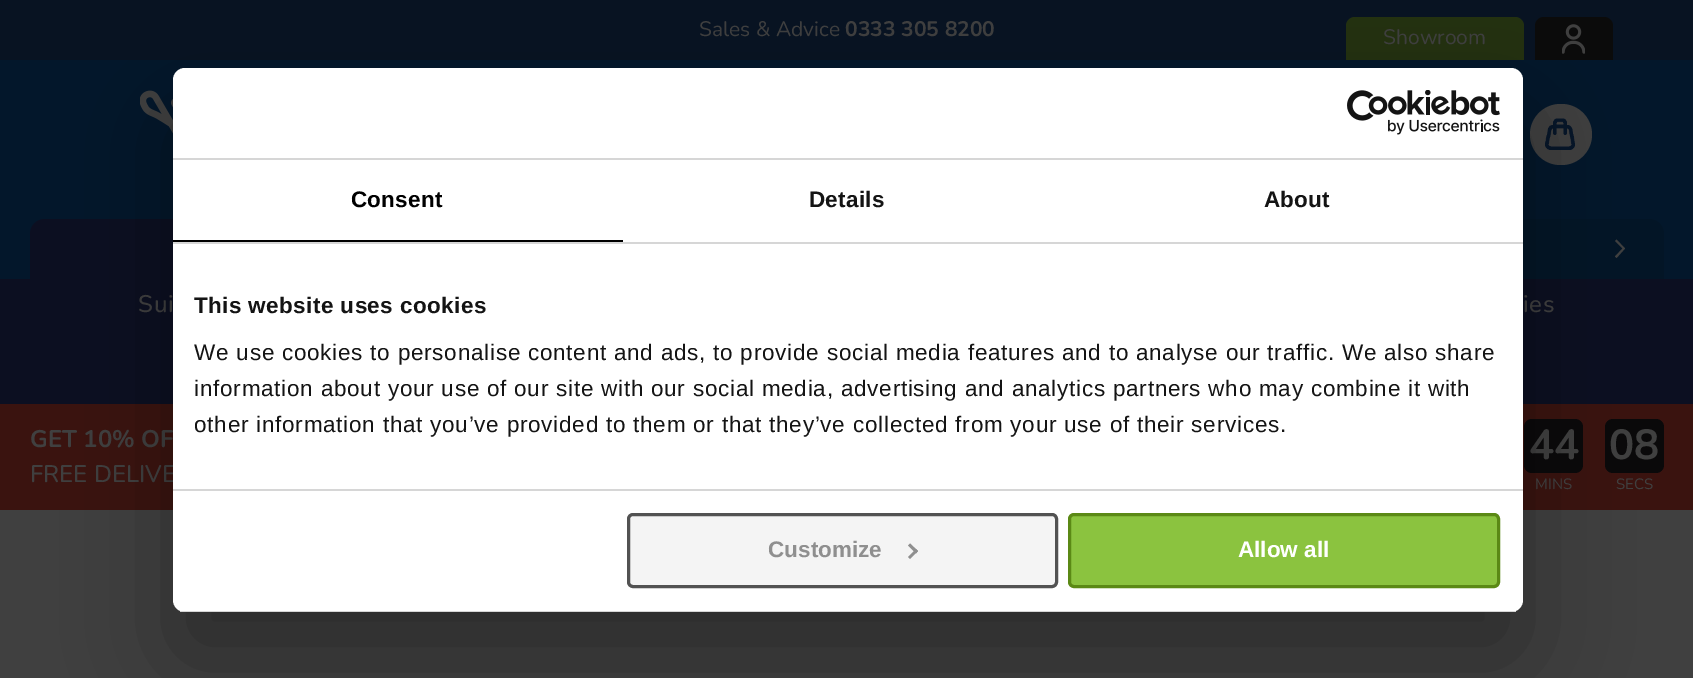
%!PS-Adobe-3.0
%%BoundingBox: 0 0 1693 678
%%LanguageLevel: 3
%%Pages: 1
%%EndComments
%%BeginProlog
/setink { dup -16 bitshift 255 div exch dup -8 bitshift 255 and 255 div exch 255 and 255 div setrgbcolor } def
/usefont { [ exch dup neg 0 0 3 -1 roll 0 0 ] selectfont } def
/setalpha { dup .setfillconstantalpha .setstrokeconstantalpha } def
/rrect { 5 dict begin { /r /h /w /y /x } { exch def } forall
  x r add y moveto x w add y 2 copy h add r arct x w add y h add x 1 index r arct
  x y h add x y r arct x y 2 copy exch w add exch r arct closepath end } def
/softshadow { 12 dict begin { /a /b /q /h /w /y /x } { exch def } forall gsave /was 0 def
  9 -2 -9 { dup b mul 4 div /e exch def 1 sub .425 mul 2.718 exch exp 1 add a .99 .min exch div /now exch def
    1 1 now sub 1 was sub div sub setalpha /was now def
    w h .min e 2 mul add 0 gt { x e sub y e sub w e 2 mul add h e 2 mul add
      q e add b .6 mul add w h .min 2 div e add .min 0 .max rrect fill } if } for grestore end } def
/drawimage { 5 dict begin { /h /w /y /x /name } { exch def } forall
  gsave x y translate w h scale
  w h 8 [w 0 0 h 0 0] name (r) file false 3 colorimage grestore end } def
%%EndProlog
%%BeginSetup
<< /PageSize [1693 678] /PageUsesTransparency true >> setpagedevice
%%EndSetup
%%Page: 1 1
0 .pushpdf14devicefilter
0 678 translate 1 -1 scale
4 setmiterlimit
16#404040 setink
0 0 1693 678 rectfill
16#03172B setink
0 60 1693 219 rectfill
16#081322 setink
0 0 1693 60 rectfill
/Nunito-Regular 21 usefont
16#404040 setink
699 36 moveto (Sales & Advice) show
/Nunito-Bold 21 usefont
845 36 moveto (0333 305 8200) show
16#233110 setink
1355 17 moveto 1515 17 lineto 1520 17 1524 21 1524 26 curveto 1524 60 lineto 1346 60 lineto 1346 26 lineto 1346 21 1350 17 1355 17 curveto closepath fill
/Nunito-Regular 21 usefont
16#404040 setink
1383 44 moveto (Showroom) show
16#0B0B0B setink
1544 17 moveto 1604 17 lineto 1609 17 1613 21 1613 26 curveto 1613 60 lineto 1535 60 lineto 1535 26 lineto 1535 21 1539 17 1544 17 curveto closepath fill
(img1.raw) 1562 24 23 30 drawimage
(img2.raw) 140 90 33 44 drawimage
16#404040 setink
1530 104 62 61 30.5 rrect fill
(img3.raw) 1545 118 30 32 drawimage
16#0C0F21 setink
45 219 moveto 557 219 lineto 565.5 219 572 225.5 572 234 curveto 572 279 lineto 30 279 lineto 30 234 lineto 30 225.5 36.5 219 45 219 curveto closepath fill
16#031526 setink
1137 219 moveto 1649 219 lineto 1657.5 219 1664 225.5 1664 234 curveto 1664 279 lineto 1122 279 lineto 1122 234 lineto 1122 225.5 1128.5 219 1137 219 curveto closepath fill
16#404040 setink
1625 248.5 moveto 1616.5 239.5 lineto 1615 241 lineto 1622.5 248.5 lineto 1615 256.5 lineto 1616.5 258 lineto closepath fill
16#0C0F21 setink
0 279 1693 125 rectfill
/Nunito-Medium 24 usefont
16#404040 setink
138 312 moveto 0.75 0 (Sui) ashow
1523 312 moveto 0.75 0 (ies) ashow
16#3A130F setink
0 404 1693 106 rectfill
/Nunito-Bold 24 usefont
16#404040 setink
30 447 moveto (GET 10% OF) show
/Nunito-Medium 24 usefont
30 482 moveto (FREE DELIVE) show
16#0A090A setink
1524 419 59 54 8 rrect fill
/Nunito-Bold 42 usefont
16#404040 setink
1529 459 moveto (44) show
/Nunito-Regular 15 usefont
1535 489 moveto (MINS) show
16#0A090A setink
1605 419 59 54 8 rrect fill
/Nunito-Bold 42 usefont
16#404040 setink
1609 459 moveto (08) show
/Nunito-Regular 15 usefont
1616 489 moveto (SECS) show
16#000000 setink
173 116 1350 544 12 51 0.3 softshadow
16#FFFFFF setink
173 68 1350 544 12 rrect fill
16#D6D6D6 setink
173 158 1350 2 rectfill
(img4.raw) 1347 90 153 45 drawimage
173 242 1350 2 rectfill
16#000000 setink
173 240 450 2 rectfill
/LiberationSans-Bold 22.5 usefont
351 207 moveto 0.25 0 (Consent) ashow
16#141414 setink
809 207 moveto 0.25 0 (Details) ashow
1264 207 moveto 0.25 0 (About) ashow
16#D6D6D6 setink
173 489 1350 2 rectfill
16#141414 setink
194 313 moveto 0.4 0 (This website uses cookies) ashow
/LiberationSans-Regular 22.5 usefont
194 360 moveto 0.75 0 (We use cookies to personalise content and ads, to provide social media features and to analyse our traffic. We also share) ashow
194 396 moveto 0.75 0 (information about your use of our site with our social media, advertising and analytics partners who may combine it with) ashow
194 432 moveto 0.75 0 (other information that you’ve provided to them or that they’ve collected from your use of their services.) ashow
gsave
173 68 1350 544 12 rrect clip newpath
16#D6D6D6 setink
173 611 1350 1 rectfill
grestore
16#F4F4F4 setink
628.5 514.5 428 72 4.5 rrect gsave fill grestore
16#525252 setink
3 setlinewidth
stroke
/LiberationSans-Bold 22.5 usefont
16#8F8F8F setink
768 557 moveto (Customize) show
910 543.5 moveto 918 551 lineto 916 553.5 lineto 908 545.5 lineto closepath fill
916 549 moveto 918 551 lineto 910 559 lineto 908 557 lineto closepath fill
16#8BC33F setink
1069.5 514.5 429 72 4.5 rrect gsave fill grestore
16#5B8915 setink
stroke
16#FFFFFF setink
1238 557 moveto (Allow all) show
.poppdf14devicefilter showpage
%%EOF
